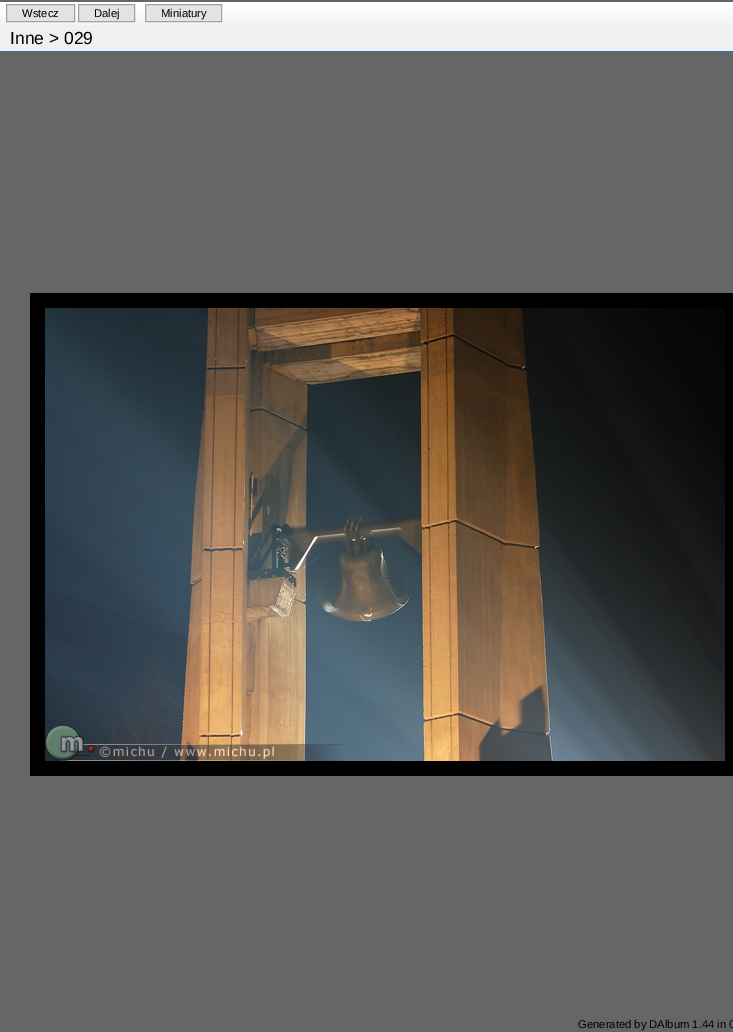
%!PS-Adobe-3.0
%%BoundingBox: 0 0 733 1032
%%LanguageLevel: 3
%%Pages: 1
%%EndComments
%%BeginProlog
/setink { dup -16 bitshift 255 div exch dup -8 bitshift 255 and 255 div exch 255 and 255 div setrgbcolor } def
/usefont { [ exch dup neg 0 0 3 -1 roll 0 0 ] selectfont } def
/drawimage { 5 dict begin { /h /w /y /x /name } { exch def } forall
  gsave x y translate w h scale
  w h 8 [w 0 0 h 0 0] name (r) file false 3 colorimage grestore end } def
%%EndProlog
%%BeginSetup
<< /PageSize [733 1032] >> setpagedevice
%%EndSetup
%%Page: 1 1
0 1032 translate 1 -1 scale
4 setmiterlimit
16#666666 setink
0 0 733 1032 rectfill
16#F0F0F0 setink
0 25 733 26 rectfill
(img1.raw) 0 2 733 23 drawimage
16#3169C6 setink
0 51 733 1 rectfill
16#E3E3E3 setink
6.5 4.5 moveto 74.5 4.5 lineto 74.5 21.5 lineto 6.5 21.5 lineto closepath gsave fill grestore
16#9AA4AE setink
stroke
/LiberationSans-Regular 11.25 usefont
16#000000 setink
22 17 moveto (Wstecz) show
16#E3E3E3 setink
78.5 4.5 moveto 134.5 4.5 lineto 134.5 21.5 lineto 78.5 21.5 lineto closepath gsave fill grestore
16#9AA4AE setink
stroke
16#000000 setink
94 17 moveto (Dalej) show
16#E3E3E3 setink
145.5 4.5 moveto 221.5 4.5 lineto 221.5 21.5 lineto 145.5 21.5 lineto closepath gsave fill grestore
16#9AA4AE setink
stroke
16#000000 setink
161 17 moveto (Miniatury) show
/LiberationSans-Regular 17.5 usefont
10 44 moveto (Inne > 029) show
30 293 703 483 rectfill
(img2.raw) 45 308 680 453 drawimage
/LiberationSans-Regular 11.25 usefont
578 1028 moveto (Generated by DAlbum 1.44 in 0) show
showpage
%%EOF
